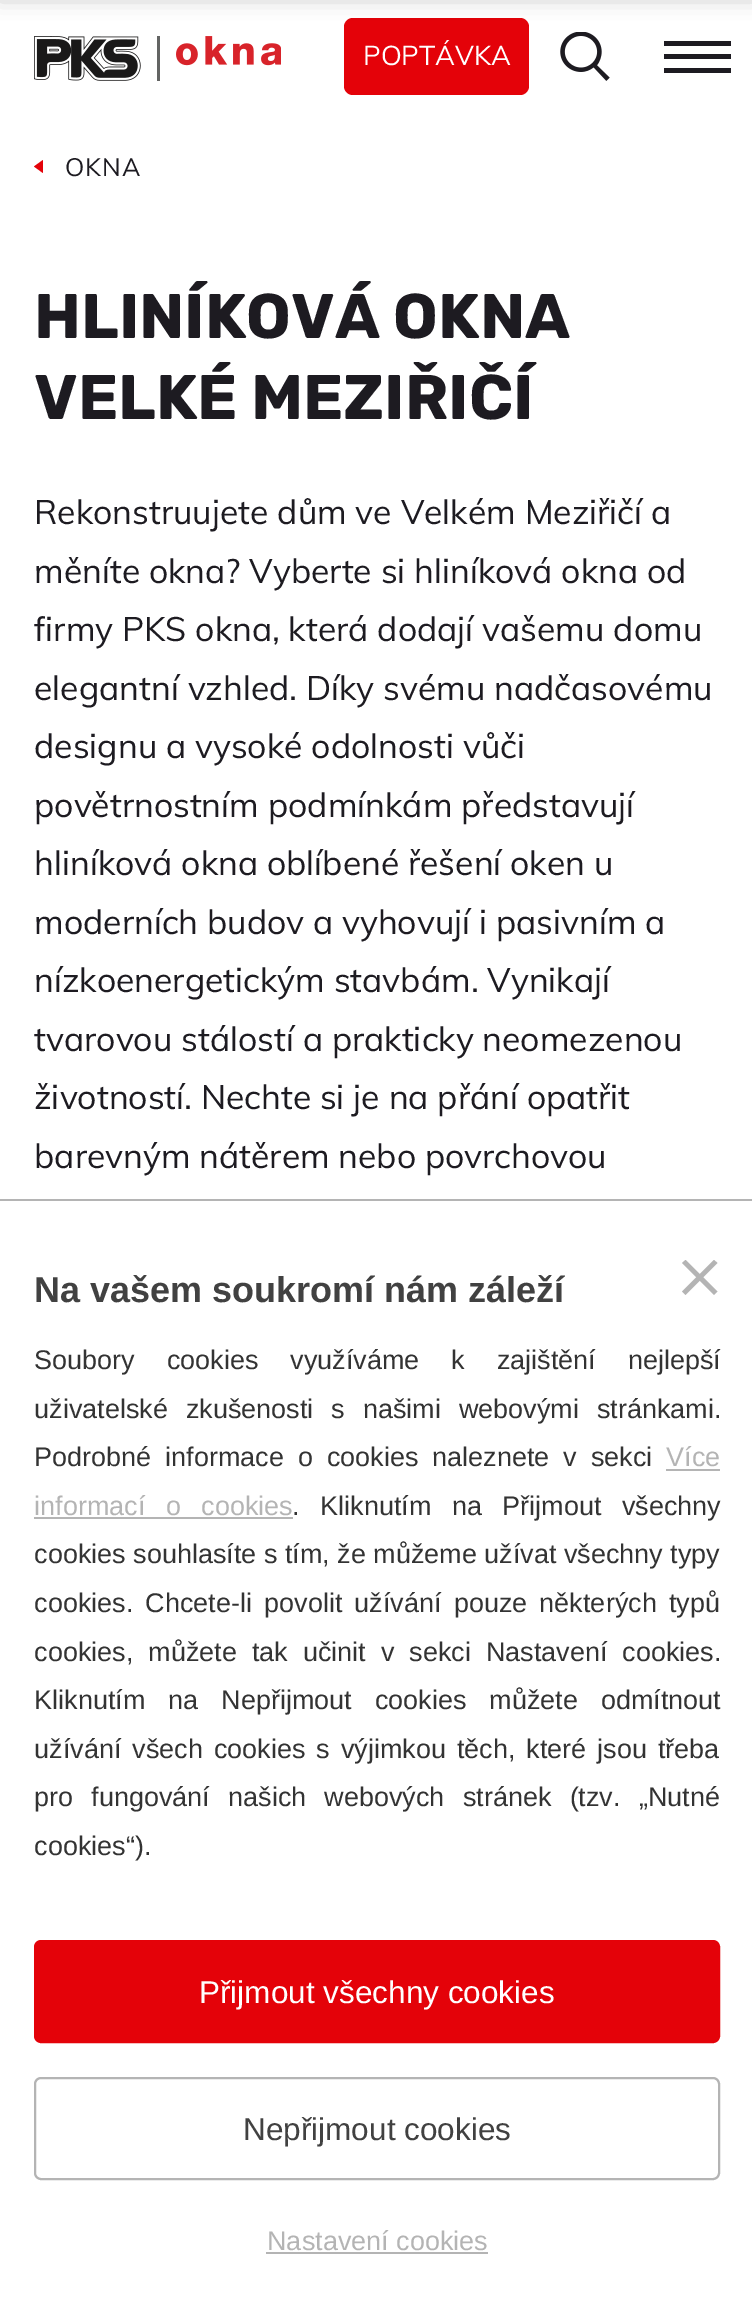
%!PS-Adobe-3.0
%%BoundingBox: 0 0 752 2302
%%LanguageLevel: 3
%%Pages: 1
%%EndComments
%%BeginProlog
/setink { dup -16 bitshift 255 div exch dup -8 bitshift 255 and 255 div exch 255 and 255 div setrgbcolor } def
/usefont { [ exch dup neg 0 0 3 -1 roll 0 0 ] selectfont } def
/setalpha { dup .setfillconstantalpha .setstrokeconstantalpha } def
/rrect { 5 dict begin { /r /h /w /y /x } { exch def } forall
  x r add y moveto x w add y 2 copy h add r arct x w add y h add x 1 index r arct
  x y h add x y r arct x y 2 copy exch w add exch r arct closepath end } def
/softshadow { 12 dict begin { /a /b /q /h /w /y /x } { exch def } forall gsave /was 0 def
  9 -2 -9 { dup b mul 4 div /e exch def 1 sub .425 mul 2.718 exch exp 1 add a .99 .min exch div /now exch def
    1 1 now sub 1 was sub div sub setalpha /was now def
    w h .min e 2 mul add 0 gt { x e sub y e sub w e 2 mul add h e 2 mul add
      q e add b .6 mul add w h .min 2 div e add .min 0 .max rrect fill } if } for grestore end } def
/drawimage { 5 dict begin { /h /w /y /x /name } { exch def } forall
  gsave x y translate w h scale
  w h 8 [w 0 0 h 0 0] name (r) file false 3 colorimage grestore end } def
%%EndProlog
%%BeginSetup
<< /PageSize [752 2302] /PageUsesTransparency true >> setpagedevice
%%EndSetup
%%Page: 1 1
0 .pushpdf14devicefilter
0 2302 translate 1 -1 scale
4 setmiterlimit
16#FFFFFF setink
0 0 752 2302 rectfill
16#E40209 setink
344 18 185 77 9 rrect fill
16#000000 setink
0 -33 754 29 0 11 0.3 softshadow
(img1.raw) 34 36 247 45 drawimage
/Muli-Regular 27 usefont
16#FFFFFF setink
363 65 moveto (POPTÁVKA) show
(img2.raw) 560 32 50 49 drawimage
[
    [664 41 67 5 16#1D1B21]
    [664 54 67 5 16#1D1B21]
    [664 68 67 5 16#1D1B21]
] { aload pop setink rectfill } forall
16#E40209 setink
43 160 moveto 43 173 lineto 34 166.5 lineto closepath fill
/Muli-Regular 25 usefont
16#1D1B21 setink
65 176 moveto 1 0 (OKNA) ashow
/Rubik-Bold 63 usefont
34 338 moveto (HLINÍKOVÁ OKNA) show
34 419 moveto (VELKÉ MEZIŘIČÍ) show
/Muli-Regular 33.75 usefont
[
    [(Rekonstruujete dům ve Velkém Meziřičí a) 34 524]
    [(měníte okna? Vyberte si hliníková okna od) 34 583]
    [(firmy PKS okna, která dodají vašemu domu) 34 641]
    [(elegantní vzhled. Díky svému nadčasovému) 34 700]
    [(designu a vysoké odolnosti vůči) 34 758]
    [(povětrnostním podmínkám představují) 34 817]
    [(hliníková okna oblíbené řešení oken u) 34 875]
    [(moderních budov a vyhovují i pasivním a) 34 934]
    [(nízkoenergetickým stavbám. Vynikají) 34 992]
    [(tvarovou stálostí a prakticky neomezenou) 34 1051]
    [(životností. Nechte si je na přání opatřit) 34 1109]
    [(barevným nátěrem nebo povrchovou) 34 1168]
] { aload pop moveto show } forall
16#B4B4B4 setink
0 1199 752 2 rectfill
/LiberationSans-Bold 36 usefont
16#414141 setink
34 1302 moveto (Na vašem soukromí nám záleží) show
16#B4B4B4 setink
685.5 1260 moveto 717.5 1291.5 lineto 714 1295 lineto 682 1263 lineto closepath fill
682 1291.5 moveto 714 1260 lineto 717.5 1263 lineto 685.5 1295 lineto closepath fill
/LiberationSans-Regular 27 usefont
16#333333 setink
34 1369 moveto 24.5 0 32 (Soubory cookies využíváme k zajištění nejlepší) widthshow
34 1418 moveto 10.5 0 32 (uživatelské zkušenosti s našimi webovými stránkami.) widthshow
34 1466 moveto 6.5 0 32 (Podrobné informace o cookies naleznete v sekci) widthshow
16#B4B4B4 setink
666 1466 moveto (Více) show
666 1469 54 2 rectfill
34 1515 moveto 13 0 32 (informací o cookies) widthshow
34 1517 259 2 rectfill
16#333333 setink
292 1515 moveto 13 0 32 (. Kliknutím na Přijmout všechny) widthshow
34 1563 moveto (cookies souhlasíte s tím, že můžeme užívat všechny typy) show
34 1612 moveto 4.75 0 32 (cookies. Chcete-li povolit užívání pouze některých typů) widthshow
34 1661 moveto 7.5 0 32 (cookies, můžete tak učinit v sekci Nastavení cookies.) widthshow
34 1709 moveto 15.5 0 32 (Kliknutím na Nepřijmout cookies můžete odmítnout) widthshow
34 1758 moveto 3.5 0 32 (užívání všech cookies s výjimkou těch, které jsou třeba) widthshow
34 1806 moveto 10.75 0 32 (pro fungování našich webových stránek \(tzv. „Nutné) widthshow
34 1855 moveto (cookies“\).) show
16#E40209 setink
35 1941 684 101 6 rrect gsave fill grestore
2 setlinewidth
stroke
/LiberationSans-Regular 31.5 usefont
16#FFFFFF setink
199 2003 moveto (Přijmout všechny cookies) show
16#B4B4B4 setink
35 2078 684 101 6 rrect stroke
16#414141 setink
243 2140 moveto (Nepřijmout cookies) show
/LiberationSans-Regular 27 usefont
16#B4B4B4 setink
267 2250 moveto (Nastavení cookies) show
266 2252 222 2 rectfill
.poppdf14devicefilter showpage
%%EOF
